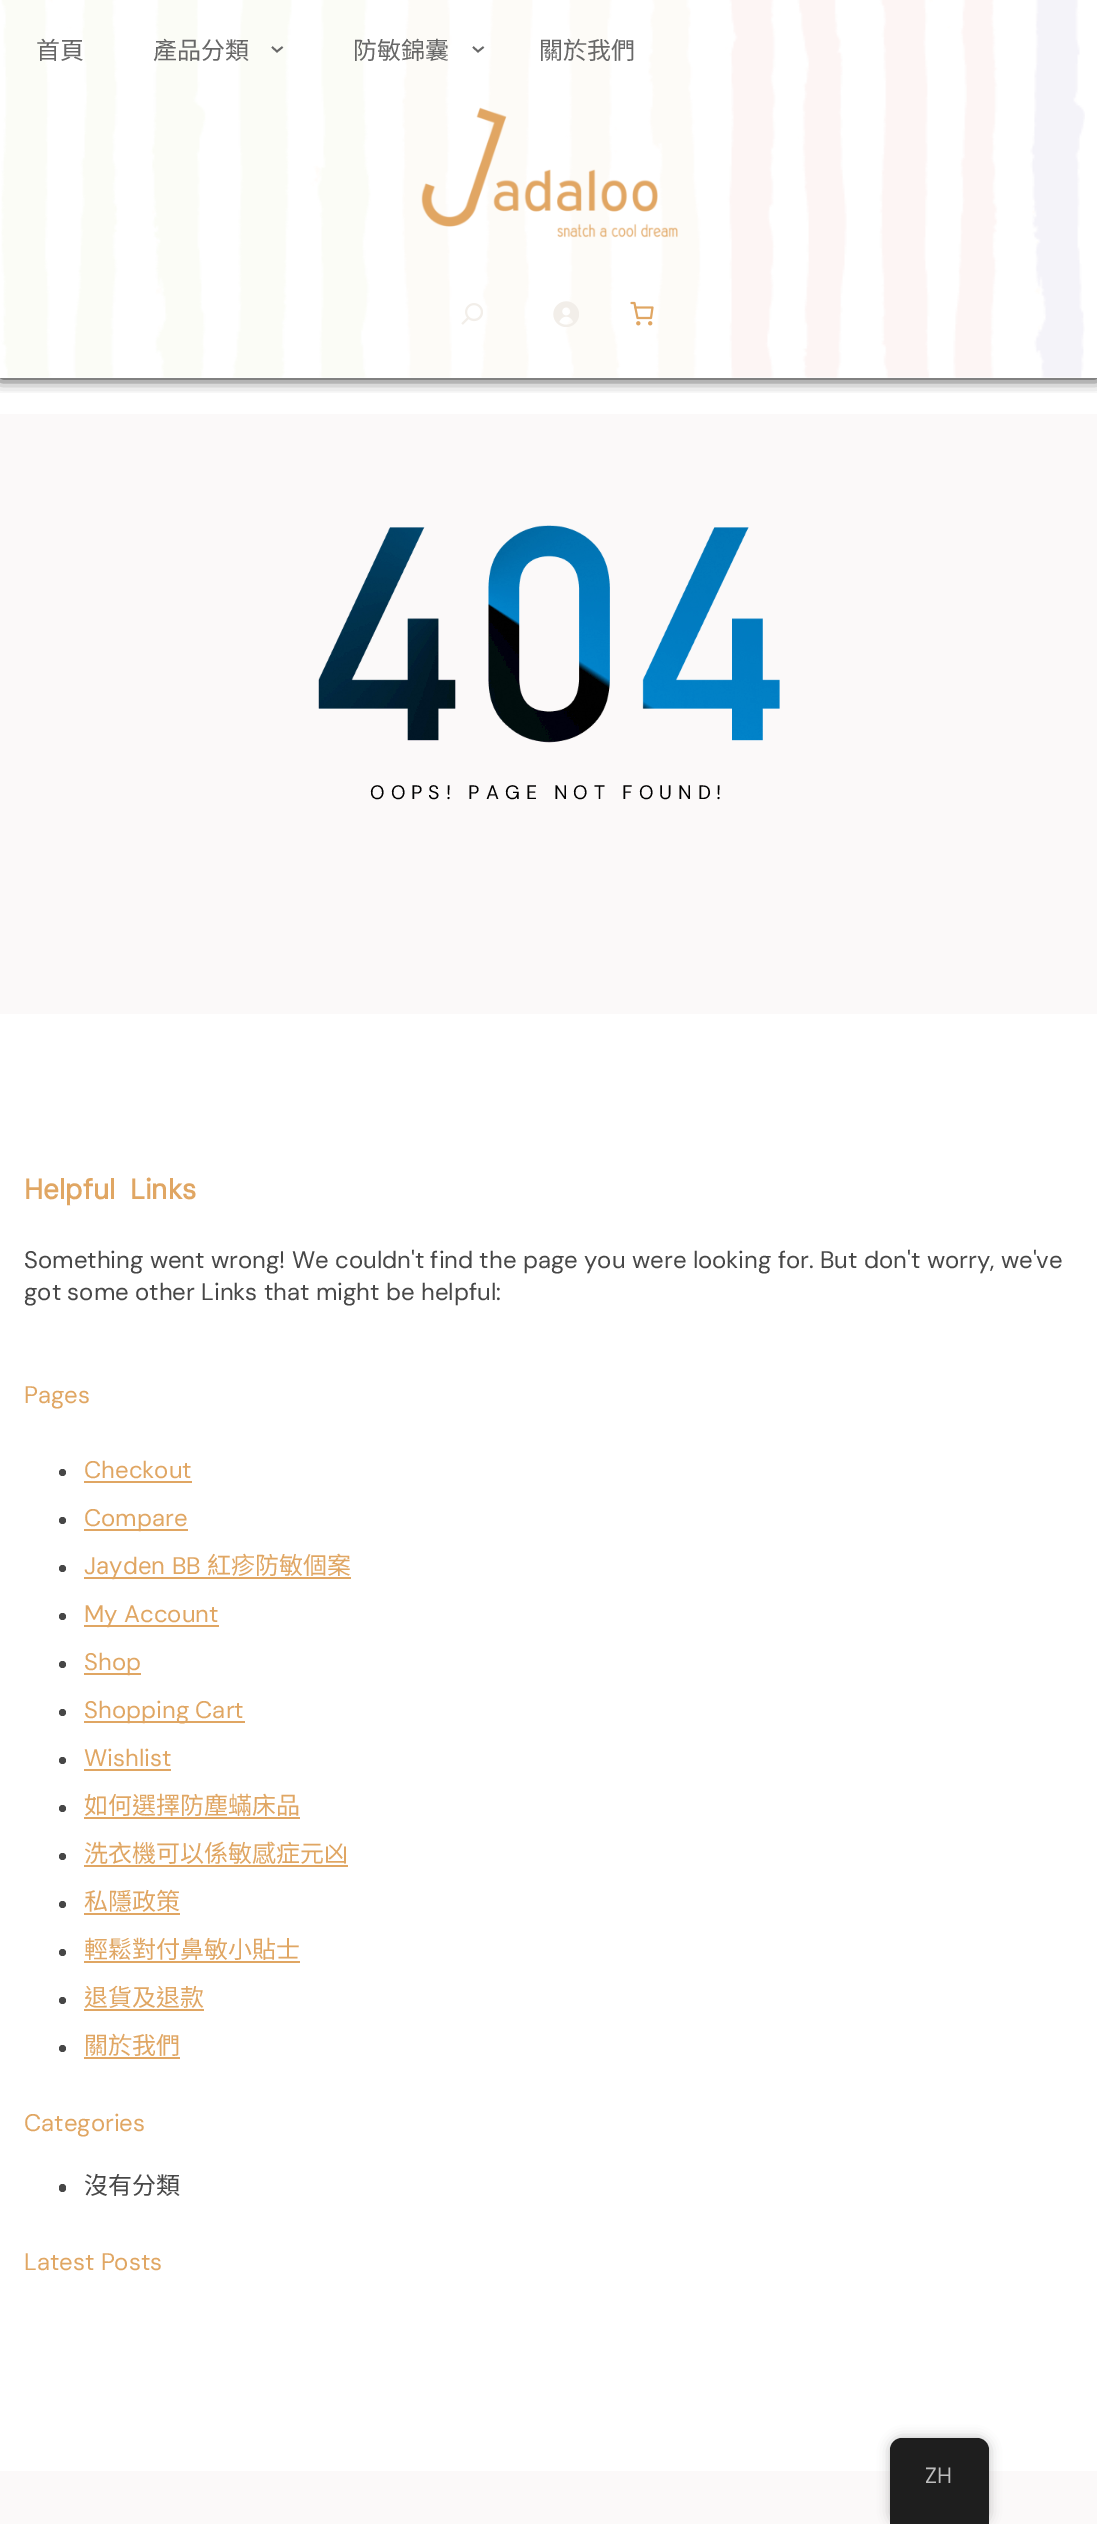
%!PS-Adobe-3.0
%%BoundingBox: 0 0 1097 2524
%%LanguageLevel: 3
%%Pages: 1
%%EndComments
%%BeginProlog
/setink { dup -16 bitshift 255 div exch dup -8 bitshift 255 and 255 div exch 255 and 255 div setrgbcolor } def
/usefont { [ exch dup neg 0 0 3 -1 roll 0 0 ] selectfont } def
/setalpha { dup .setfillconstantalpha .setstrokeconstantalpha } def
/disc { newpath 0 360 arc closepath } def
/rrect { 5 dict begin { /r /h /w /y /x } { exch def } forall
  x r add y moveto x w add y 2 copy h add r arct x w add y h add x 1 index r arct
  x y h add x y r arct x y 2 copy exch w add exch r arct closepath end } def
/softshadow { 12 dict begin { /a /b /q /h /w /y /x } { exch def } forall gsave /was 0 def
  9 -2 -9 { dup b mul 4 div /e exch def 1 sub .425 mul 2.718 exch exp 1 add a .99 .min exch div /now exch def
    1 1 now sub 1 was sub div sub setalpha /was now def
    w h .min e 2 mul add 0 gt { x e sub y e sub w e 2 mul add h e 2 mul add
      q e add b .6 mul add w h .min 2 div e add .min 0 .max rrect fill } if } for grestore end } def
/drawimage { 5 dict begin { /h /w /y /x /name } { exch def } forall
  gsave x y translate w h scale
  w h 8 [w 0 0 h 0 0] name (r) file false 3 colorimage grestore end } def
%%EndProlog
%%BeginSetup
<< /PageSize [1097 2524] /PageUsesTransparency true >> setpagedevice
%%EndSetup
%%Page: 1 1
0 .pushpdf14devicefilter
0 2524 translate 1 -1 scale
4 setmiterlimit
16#FFFFFF setink
0 0 1097 2524 rectfill
gsave
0 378 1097 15 rectclip
16#000000 setink
0 0 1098 378 0 7.5 1 softshadow
grestore
(img1.raw) 1 0 1084 378 drawimage
/NotoSansCJKHK-Regular 24 usefont
16#676767 setink
36 59 moveto (首頁) show
153 59 moveto (產品分類) show
1.8 setlinewidth
272 47 moveto 277 51.5 lineto 282.5 47 lineto stroke
353 59 moveto (防敏錦囊) show
473 47 moveto 478 51.5 lineto 483.5 47 lineto stroke
539 59 moveto (關於我們) show
(img2.raw) 421 107 257 131 drawimage
(img3.raw) 461 303 22 22 drawimage
(img4.raw) 553 301 26 26 drawimage
(img5.raw) 630 301 24 25 drawimage
16#FBF9F9 setink
0 414 1097 600 rectfill
(img6.raw) 318 525 462 218 drawimage
/DMSans-Regular 19.5 usefont
16#000000 setink
370 799 moveto 6 0 (OOPS! PAGE NOT FOUND!) ashow
/DMSans-Bold 28 usefont
16#E0A663 setink
24 1199 moveto 7 0 32 (Helpful Links) widthshow
/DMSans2-Regular 24 usefont
16#474747 setink
24 1268 moveto (Something went wrong! We couldn't find the page you were looking for. But don't worry, we've) show
24 1300 moveto (got some other Links that might be helpful:) show
16#E0A663 setink
24 1403 moveto (Pages) show
16#474747 setink
62.5 1472.5 3.5 disc fill
16#E0A663 setink
84 1478 moveto (Checkout) show
84 1481 108 2 rectfill
16#474747 setink
62.5 1520.5 3.5 disc fill
16#E0A663 setink
84 1529 104 2 rectfill
84 1526 moveto (Compare) show
16#474747 setink
62.5 1568.5 3.5 disc fill
16#E0A663 setink
84 1577 267 2 rectfill
/DMSans-Regular 24 usefont
84 1574 moveto (Jayden BB) show
/NotoSansCJKHK-Regular 24 usefont
207 1574 moveto (紅疹防敏個案) show
16#474747 setink
62.5 1616.5 3.5 disc fill
16#E0A663 setink
84 1625 135 2 rectfill
/DMSans2-Regular 24 usefont
84 1622 moveto (My Account) show
16#474747 setink
62.5 1664.5 3.5 disc fill
16#E0A663 setink
84 1673 57 2 rectfill
84 1670 moveto (Shop) show
16#474747 setink
62.5 1712.5 3.5 disc fill
16#E0A663 setink
84 1721 161 2 rectfill
84 1718 moveto (Shopping Cart) show
16#474747 setink
62.5 1760.5 3.5 disc fill
16#E0A663 setink
84 1766 moveto (Wishlist) show
84 1769 87 2 rectfill
16#474747 setink
62.5 1808.5 3.5 disc fill
/NotoSansCJKHK-Regular 24 usefont
16#E0A663 setink
84 1814 moveto (如何選擇防塵蟎床品) show
84 1817 216 2 rectfill
16#474747 setink
62.5 1856.5 3.5 disc fill
16#E0A663 setink
84 1862 moveto (洗衣機可以係敏感症元凶) show
84 1865 264 2 rectfill
16#474747 setink
62.5 1904.5 3.5 disc fill
16#E0A663 setink
84 1910 moveto (私隱政策) show
84 1913 96 2 rectfill
16#474747 setink
62.5 1952.5 3.5 disc fill
16#E0A663 setink
84 1958 moveto (輕鬆對付鼻敏小貼士) show
84 1961 216 2 rectfill
16#474747 setink
62.5 2000.5 3.5 disc fill
16#E0A663 setink
84 2006 moveto (退貨及退款) show
84 2009 120 2 rectfill
16#474747 setink
62.5 2048.5 3.5 disc fill
16#E0A663 setink
84 2054 moveto (關於我們) show
84 2057 96 2 rectfill
/DMSans2-Regular 24 usefont
24 2131 moveto (Categories) show
16#474747 setink
59 2184 7 8 3.5 rrect fill
/NotoSansCJKHK-Regular 24 usefont
84 2194 moveto (沒有分類) show
/DMSans2-Regular 24 usefont
16#E0A663 setink
24 2270 moveto (Latest Posts) show
16#FBF9F9 setink
0 2471 1097 53 rectfill
16#000000 setink
890 2438 99 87 12 6 0.25 softshadow
16#1E1E1E setink
902 2438 moveto 977 2438 lineto 983.5 2438 989 2443.5 989 2450 curveto 989 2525 lineto 890 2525 lineto 890 2450 lineto 890 2443.5 895.5 2438 902 2438 curveto closepath fill
/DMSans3-Regular 22 usefont
16#BDBDBD setink
925 2483 moveto (ZH) show
.poppdf14devicefilter showpage
%%EOF
